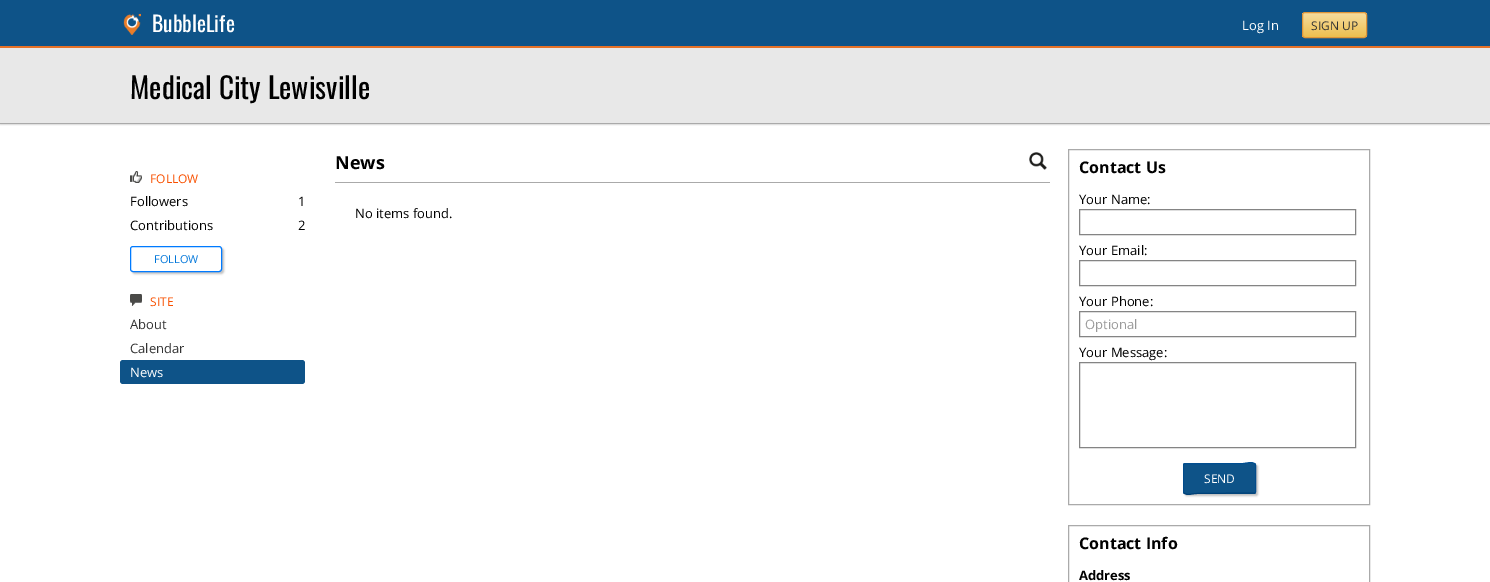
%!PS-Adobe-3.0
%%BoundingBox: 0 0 1490 582
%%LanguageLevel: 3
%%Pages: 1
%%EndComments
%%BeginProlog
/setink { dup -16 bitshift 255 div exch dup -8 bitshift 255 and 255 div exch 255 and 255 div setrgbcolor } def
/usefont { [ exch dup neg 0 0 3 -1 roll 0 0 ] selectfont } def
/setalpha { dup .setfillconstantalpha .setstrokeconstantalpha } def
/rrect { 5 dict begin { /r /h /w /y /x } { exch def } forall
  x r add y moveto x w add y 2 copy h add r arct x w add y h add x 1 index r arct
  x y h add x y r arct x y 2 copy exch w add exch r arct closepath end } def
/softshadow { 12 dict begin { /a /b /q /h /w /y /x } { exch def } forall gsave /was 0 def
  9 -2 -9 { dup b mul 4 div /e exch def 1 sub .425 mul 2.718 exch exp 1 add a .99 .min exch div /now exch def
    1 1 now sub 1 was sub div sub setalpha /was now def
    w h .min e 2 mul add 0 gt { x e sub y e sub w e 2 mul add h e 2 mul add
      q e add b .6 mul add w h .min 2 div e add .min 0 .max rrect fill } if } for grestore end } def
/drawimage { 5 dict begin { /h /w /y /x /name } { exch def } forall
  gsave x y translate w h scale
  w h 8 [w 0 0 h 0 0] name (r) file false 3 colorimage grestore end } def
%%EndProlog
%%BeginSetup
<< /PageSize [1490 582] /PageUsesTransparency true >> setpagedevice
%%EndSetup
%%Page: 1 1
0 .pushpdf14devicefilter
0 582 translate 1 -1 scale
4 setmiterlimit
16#FFFFFF setink
0 0 1490 582 rectfill
16#0E5388 setink
0 0 1490 46 rectfill
16#E67127 setink
0 46 1490 2 rectfill
(img1.raw) 123 13 18 22 drawimage
/Oswald-Regular 21.5 usefont
16#FFFFFF setink
152 32 moveto (BubbleLife) show
/OpenSans-Regular 13 usefont
1242 30 moveto (Log In) show
gsave
1302 12 65 26 3 rrect clip newpath
gsave 1302 13 moveto 1367 13 lineto 1367 37 lineto 1302 37 lineto closepath clip newpath
<< /ShadingType 2 /ColorSpace /DeviceRGB /Coords [1335 13 1335 37] /Extend [true true] /Function << /FunctionType 2 /Domain [0 1] /C0 [0.969 0.867 0.62] /C1 [0.929 0.749 0.31] /N 1 >> >> shfill grestore
grestore
16#DF9538 setink
1302.5 12.5 64 25 2.5 rrect stroke
/OpenSans-Regular 12 usefont
16#333333 setink
1311 30 moveto (SIGN UP) show
16#DDDDDD setink
0 49 1490 76 0 0.5 1 softshadow
16#E8E8E8 setink
0 48 1490 75 rectfill
16#AAAAAA setink
0 123 1490 1 rectfill
/Oswald-Regular 29.25 usefont
16#000000 setink
130 99 moveto (Medical City Lewisville) show
(img2.raw) 130 171 12 12 drawimage
/OpenSans-Regular 12 usefont
16#F85000 setink
150 183 moveto (FOLLOW) show
/OpenSans-Regular 13 usefont
16#000000 setink
[
    [(Followers) 130 206]
    [(1) 298 206]
    [(Contributions) 130 230]
    [(2) 298 230]
] { aload pop moveto show } forall
16#C0C0C0 setink
132 248 92 26 3 1 1 softshadow
16#FFFFFF setink
130.5 246.5 91 25 2.5 rrect gsave fill grestore
16#007AFF setink
stroke
/OpenSans-Regular 11 usefont
16#0176D9 setink
154 263 moveto (FOLLOW) show
(img3.raw) 130 294 12 12 drawimage
/OpenSans-Regular 12 usefont
16#F85000 setink
150 306 moveto (SITE) show
/OpenSans-Regular 13 usefont
16#333333 setink
130 329 moveto (About) show
130 353 moveto (Calendar) show
16#0E5388 setink
120 360 185 24 3 rrect fill
16#FFFFFF setink
130 377 moveto (News) show
16#AAAAAA setink
335 182 715 1 rectfill
/OpenSans-Bold 18 usefont
16#000000 setink
335 169 moveto (News) show
(img4.raw) 1029 152 18 18 drawimage
/OpenSans-Regular 13 usefont
355 218 moveto (No items found.) show
16#AAAAAA setink
1068.5 149.5 301 355 rectstroke
/OpenSans-Bold 16 usefont
16#000000 setink
1079 173 moveto (Contact Us) show
/OpenSans-Regular 13 usefont
1079 204 moveto (Your Name:) show
16#848484 setink
1079.5 209.5 276 25 rectstroke
16#000000 setink
1079 255 moveto (Your Email:) show
16#848484 setink
1079.5 260.5 276 25 rectstroke
16#000000 setink
1079 306 moveto (Your Phone:) show
16#848484 setink
1079.5 311.5 276 25 rectstroke
16#999999 setink
1085 329 moveto (Optional) show
16#000000 setink
1079 357 moveto (Your Message:) show
16#848484 setink
1079.5 362.5 276 85 rectstroke
16#C0C0C0 setink
1185 465 73 31 2 1 1 softshadow
16#0E5388 setink
1183 463 73 31 2 rrect fill
16#004E91 setink
1184 464 moveto 1242.5 463.5 lineto 1246.5 463.5 1252 461 1255 464 curveto stroke
16#014B8B setink
1255 464 moveto 1255.5 465 lineto 1255.5 492 lineto 1255 493 lineto stroke
16#004178 setink
1255 493 moveto 1196.5 493.5 lineto 1192.5 493.5 1187 496 1184 493 curveto stroke
16#014B8B setink
1184 493 moveto 1183.5 492 lineto 1183.5 465 lineto 1184 464 lineto stroke
/OpenSans-Regular 12 usefont
16#FFFFFF setink
1204 483 moveto (SEND) show
16#AAAAAA setink
1068.5 525.5 301 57 rectstroke
/OpenSans-Bold 16 usefont
16#000000 setink
1079 549 moveto (Contact Info) show
/OpenSans-Bold 13 usefont
1079 580 moveto (Address) show
.poppdf14devicefilter showpage
%%EOF
